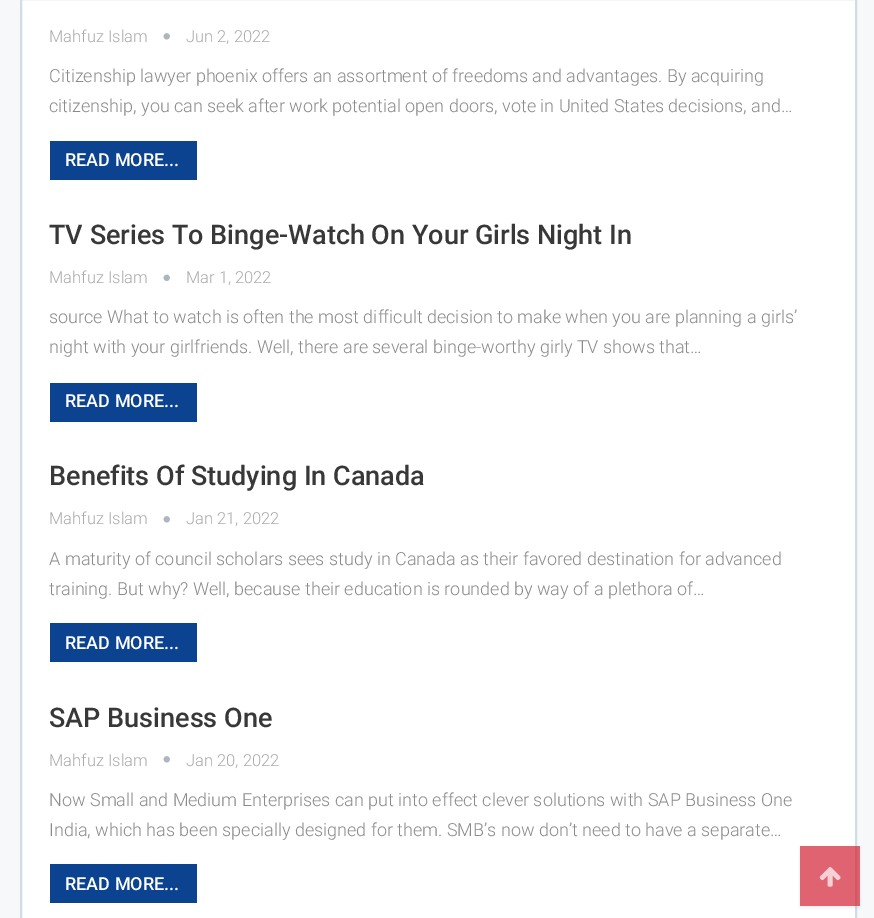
%!PS-Adobe-3.0
%%BoundingBox: 0 0 874 918
%%LanguageLevel: 3
%%Pages: 1
%%EndComments
%%BeginProlog
/setink { dup -16 bitshift 255 div exch dup -8 bitshift 255 and 255 div exch 255 and 255 div setrgbcolor } def
/usefont { [ exch dup neg 0 0 3 -1 roll 0 0 ] selectfont } def
/setalpha { dup .setfillconstantalpha .setstrokeconstantalpha } def
/rrect { 5 dict begin { /r /h /w /y /x } { exch def } forall
  x r add y moveto x w add y 2 copy h add r arct x w add y h add x 1 index r arct
  x y h add x y r arct x y 2 copy exch w add exch r arct closepath end } def
/softshadow { 12 dict begin { /a /b /q /h /w /y /x } { exch def } forall gsave /was 0 def
  9 -2 -9 { dup b mul 4 div /e exch def 1 sub .425 mul 2.718 exch exp 1 add a .99 .min exch div /now exch def
    1 1 now sub 1 was sub div sub setalpha /was now def
    w h .min e 2 mul add 0 gt { x e sub y e sub w e 2 mul add h e 2 mul add
      q e add b .6 mul add w h .min 2 div e add .min 0 .max rrect fill } if } for grestore end } def
/drawimage { 5 dict begin { /h /w /y /x /name } { exch def } forall
  gsave x y translate w h scale
  w h 8 [w 0 0 h 0 0] name (r) file false 3 colorimage grestore end } def
%%EndProlog
%%BeginSetup
<< /PageSize [874 918] /PageUsesTransparency true >> setpagedevice
%%EndSetup
%%Page: 1 1
0 .pushpdf14devicefilter
0 918 translate 1 -1 scale
4 setmiterlimit
16#F6F8FA setink
0 0 874 918 rectfill
16#FFFFFF setink
21 -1 moveto 856 -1 lineto 856 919 lineto 21 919 lineto closepath gsave fill grestore
16#D2DCE3 setink
2 setlinewidth
stroke
/Roboto-Light 16.5 usefont
16#AAAAAA setink
49 42 moveto (Mahfuz Islam) show
(img1.raw) 163 33 7 7 drawimage
186 42 moveto (Jun 2, 2022) show
/Roboto-Light 18 usefont
16#8A8A8A setink
49 82 moveto (Citizenship lawyer phoenix offers an assortment of freedoms and advantages. By acquiring) show
49 112 moveto (citizenship, you can seek after work potential open doors, vote in United States decisions, and…) show
16#0B4391 setink
50 141 147 39 rectfill
/Roboto-Medium 18 usefont
16#FFFFFF setink
65 166 moveto (READ MORE...) show
/Roboto-Medium 27 usefont
16#383838 setink
49 244 moveto (TV Series To Binge-Watch On Your Girls Night In) show
/Roboto-Light 16.5 usefont
16#AAAAAA setink
49 283 moveto (Mahfuz Islam) show
(img2.raw) 163 274 7 7 drawimage
186 283 moveto (Mar 1, 2022) show
/Roboto-Light 18 usefont
16#8A8A8A setink
49 323 moveto (source What to watch is often the most difficult decision to make when you are planning a girls’) show
49 353 moveto (night with your girlfriends. Well, there are several binge-worthy girly TV shows that…) show
16#0B4391 setink
50 383 147 39 rectfill
/Roboto-Medium 18 usefont
16#FFFFFF setink
65 407 moveto (READ MORE...) show
/Roboto-Medium 27 usefont
16#383838 setink
49 485 moveto (Benefits Of Studying In Canada) show
/Roboto-Light 16.5 usefont
16#AAAAAA setink
49 524 moveto (Mahfuz Islam) show
(img1.raw) 163 516 7 7 drawimage
186 524 moveto (Jan 21, 2022) show
/Roboto-Light 18 usefont
16#8A8A8A setink
49 565 moveto (A maturity of council scholars sees study in Canada as their favored destination for advanced) show
49 595 moveto (training. But why? Well, because their education is rounded by way of a plethora of…) show
16#0B4391 setink
50 623 147 39 rectfill
/Roboto-Medium 18 usefont
16#FFFFFF setink
65 649 moveto (READ MORE...) show
/Roboto-Medium 27 usefont
16#383838 setink
49 727 moveto (SAP Business One) show
/Roboto-Light 16.5 usefont
16#AAAAAA setink
49 766 moveto (Mahfuz Islam) show
(img1.raw) 163 756 7 7 drawimage
186 766 moveto (Jan 20, 2022) show
/Roboto-Light 18 usefont
16#8A8A8A setink
49 806 moveto (Now Small and Medium Enterprises can put into effect clever solutions with SAP Business One) show
49 836 moveto (India, which has been specially designed for them. SMB’s now don’t need to have a separate…) show
16#0B4391 setink
50 864 147 39 rectfill
/Roboto-Medium 18 usefont
16#FFFFFF setink
65 890 moveto (READ MORE...) show
gsave
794 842 moveto 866 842 lineto 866 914 lineto 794 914 lineto closepath 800 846 moveto 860 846 lineto 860 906 lineto 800 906 lineto closepath eoclip newpath
16#000000 setink
800 848 60 60 0 1.5 0.06 softshadow
grestore
0.7 setalpha
16#D12133 setink
800 846 60 60 rectfill
1 setalpha
(img3.raw) 819 867 22 20 drawimage
.poppdf14devicefilter showpage
%%EOF
